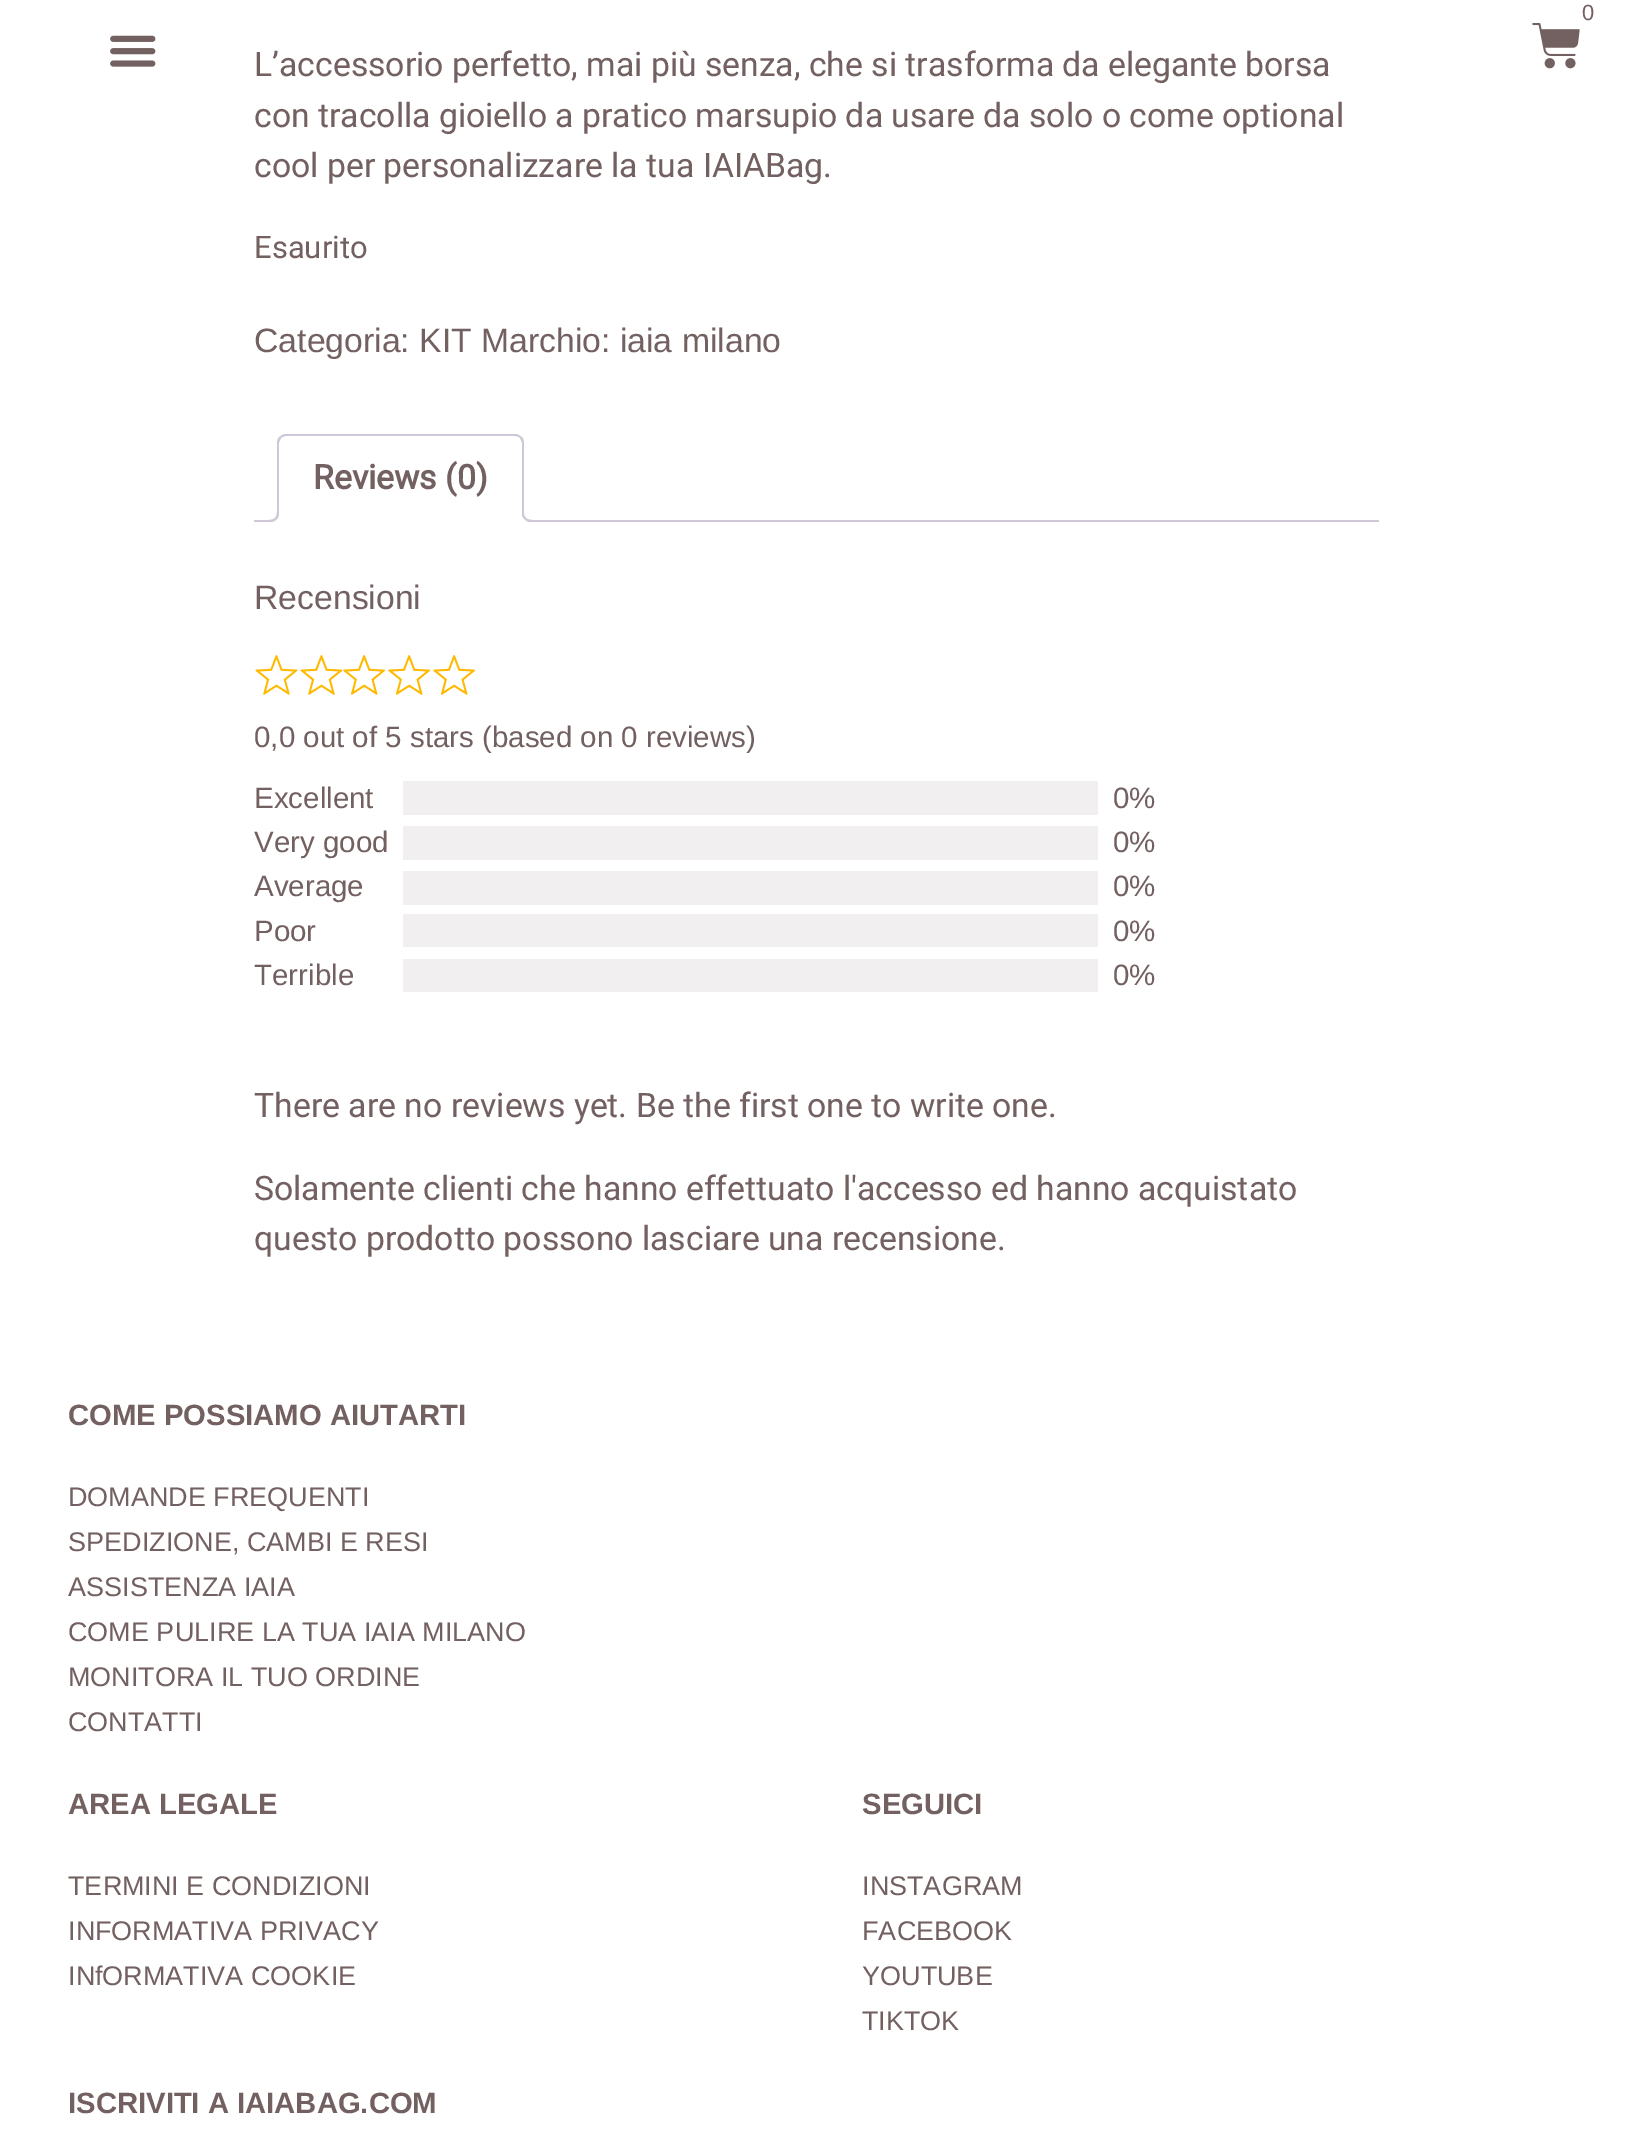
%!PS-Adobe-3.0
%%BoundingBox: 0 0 1632 2134
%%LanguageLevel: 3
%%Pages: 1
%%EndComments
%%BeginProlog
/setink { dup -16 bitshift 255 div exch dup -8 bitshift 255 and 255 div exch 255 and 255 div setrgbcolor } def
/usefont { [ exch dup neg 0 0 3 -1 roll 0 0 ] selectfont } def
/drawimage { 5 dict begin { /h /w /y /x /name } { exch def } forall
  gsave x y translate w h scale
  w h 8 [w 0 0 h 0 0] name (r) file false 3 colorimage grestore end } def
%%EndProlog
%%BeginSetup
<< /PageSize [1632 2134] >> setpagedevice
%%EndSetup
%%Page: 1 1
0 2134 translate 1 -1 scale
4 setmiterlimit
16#FFFFFF setink
0 0 1632 2134 rectfill
/LiberationSans-Regular 22 usefont
16#736060 setink
1582 20 moveto (0) show
(img1.raw) 1532 23 48 46 drawimage
(img2.raw) 110 35 46 32 drawimage
/Roboto-Regular 33.75 usefont
[
    [(L’accessorio perfetto, mai più senza, che si trasforma da elegante borsa) 254 76]
    [(con tracolla gioiello a pratico marsupio da usare da solo o come optional) 254 127]
    [(cool per personalizzare la tua IAIABag.) 254 177]
] { aload pop moveto show } forall
/Roboto-Regular 31 usefont
254 258 moveto (Esaurito) show
/LiberationSans-Regular 33.75 usefont
254 352 moveto (Categoria: KIT Marchio: iaia milano) show
16#CFC8D8 setink
254 520 1125 2 rectfill
16#FFFFFF setink
286 434 moveto 515 434 lineto 520 434 524 438 524 443 curveto 524 522 lineto 277 522 lineto 277 443 lineto 277 438 281 434 286 434 curveto closepath fill
16#CFC8D8 setink
286 436 moveto 284 436 282 437 281 438 curveto 279 437 lineto 281 436 282 435 284 434 curveto 517 434 lineto 519 435 520 436 522 437 curveto 520 438 lineto 519 437 517 436 515 436 curveto closepath fill
522 437 moveto 523 438 524 441 524 443 curveto 524 522 lineto 522 520 lineto 522 443 lineto 522 442 521 440 520 438 curveto closepath fill
16#FFFFFF setink
277 522 moveto 524 522 lineto 522 520 lineto 279 520 lineto closepath fill
16#CFC8D8 setink
277 522 moveto 277 443 lineto 277 441 278 438 279 437 curveto 281 438 lineto 280 440 279 442 279 443 curveto 279 520 lineto closepath fill
/Roboto-Bold 33.75 usefont
16#736060 setink
313 489 moveto (Reviews \(0\)) show
gsave
254 434 1125 88 rectclip
16#FFFFFF setink
272 522 moveto 272 527 lineto 281 527 284 524 284 515 curveto 279 515 lineto 278 518.5 275.5 521 272 522 curveto closepath fill
grestore
16#CFC8D8 setink
268 511 moveto 279 511 lineto 279 519 276 522 268 522 curveto closepath 268 511 moveto 277 511 lineto 277 517.5 274.5 520 268 520 curveto closepath eofill
gsave
254 434 1125 88 rectclip
16#FFFFFF setink
518 515 moveto 518 523 520 527 529 527 curveto 529 522 lineto 525.5 521 523 518.5 522 515 curveto closepath fill
grestore
522 511 moveto 533 511 lineto 533 522 lineto 531 522 lineto 526 522 522 518 522 513 curveto closepath 524 511 moveto 533 511 lineto 533 520 lineto 528.5 520 524 518.5 524 513 curveto closepath eofill
/LiberationSans-Regular 33.75 usefont
16#736060 setink
254 609 moveto (Recensioni) show
(img3.raw) 255 655 43 40 drawimage
(img4.raw) 300 655 42 40 drawimage
(img5.raw) 343 655 43 40 drawimage
(img5.raw) 388 655 43 40 drawimage
(img6.raw) 433 655 42 40 drawimage
/LiberationSans-Regular 29.5 usefont
254 747 moveto (0,0 out of 5 stars \(based on 0 reviews\)) show
254 808 moveto (Excellent) show
16#F1EFEF setink
403 781 695 34 rectfill
16#736060 setink
1113 808 moveto (0%) show
254 852 moveto (Very good) show
16#F1EFEF setink
403 826 695 34 rectfill
16#736060 setink
1113 852 moveto (0%) show
254 896 moveto (Average) show
16#F1EFEF setink
403 871 695 34 rectfill
16#736060 setink
1113 896 moveto (0%) show
254 941 moveto (Poor) show
16#F1EFEF setink
403 914 695 33 rectfill
16#736060 setink
1113 941 moveto (0%) show
254 985 moveto (Terrible) show
16#F1EFEF setink
403 959 695 33 rectfill
16#736060 setink
1113 985 moveto (0%) show
/Roboto-Regular 33.75 usefont
[
    [(There are no reviews yet. Be the first one to write one.) 254 1117]
    [(Solamente clienti che hanno effettuato l'accesso ed hanno acquistato) 254 1200]
    [(questo prodotto possono lasciare una recensione.) 254 1250]
] { aload pop moveto show } forall
/LiberationSans-Bold 29.25 usefont
68 1425 moveto (COME POSSIAMO AIUTARTI) show
/LiberationSans-Regular 27 usefont
[
    [(DOMANDE FREQUENTI) 68 1506]
    [(SPEDIZIONE, CAMBI E RESI) 68 1551]
    [(ASSISTENZA IAIA) 68 1596]
    [(COME PULIRE LA TUA IAIA MILANO) 68 1641]
    [(MONITORA IL TUO ORDINE) 68 1686]
    [(CONTATTI) 68 1731]
] { aload pop moveto show } forall
/LiberationSans-Bold 29.25 usefont
68 1814 moveto (AREA LEGALE) show
/LiberationSans-Regular 27 usefont
[
    [(TERMINI E CONDIZIONI) 68 1895]
    [(INFORMATIVA PRIVACY) 68 1940]
    [(INfORMATIVA COOKIE) 68 1985]
] { aload pop moveto show } forall
/LiberationSans-Bold 29.25 usefont
862 1814 moveto (SEGUICI) show
/LiberationSans-Regular 27 usefont
[
    [(INSTAGRAM) 862 1895]
    [(FACEBOOK) 862 1940]
    [(YOUTUBE) 862 1985]
    [(TIKTOK) 862 2030]
] { aload pop moveto show } forall
/LiberationSans-Bold 29.25 usefont
68 2113 moveto (ISCRIVITI A IAIABAG.COM) show
showpage
%%EOF
